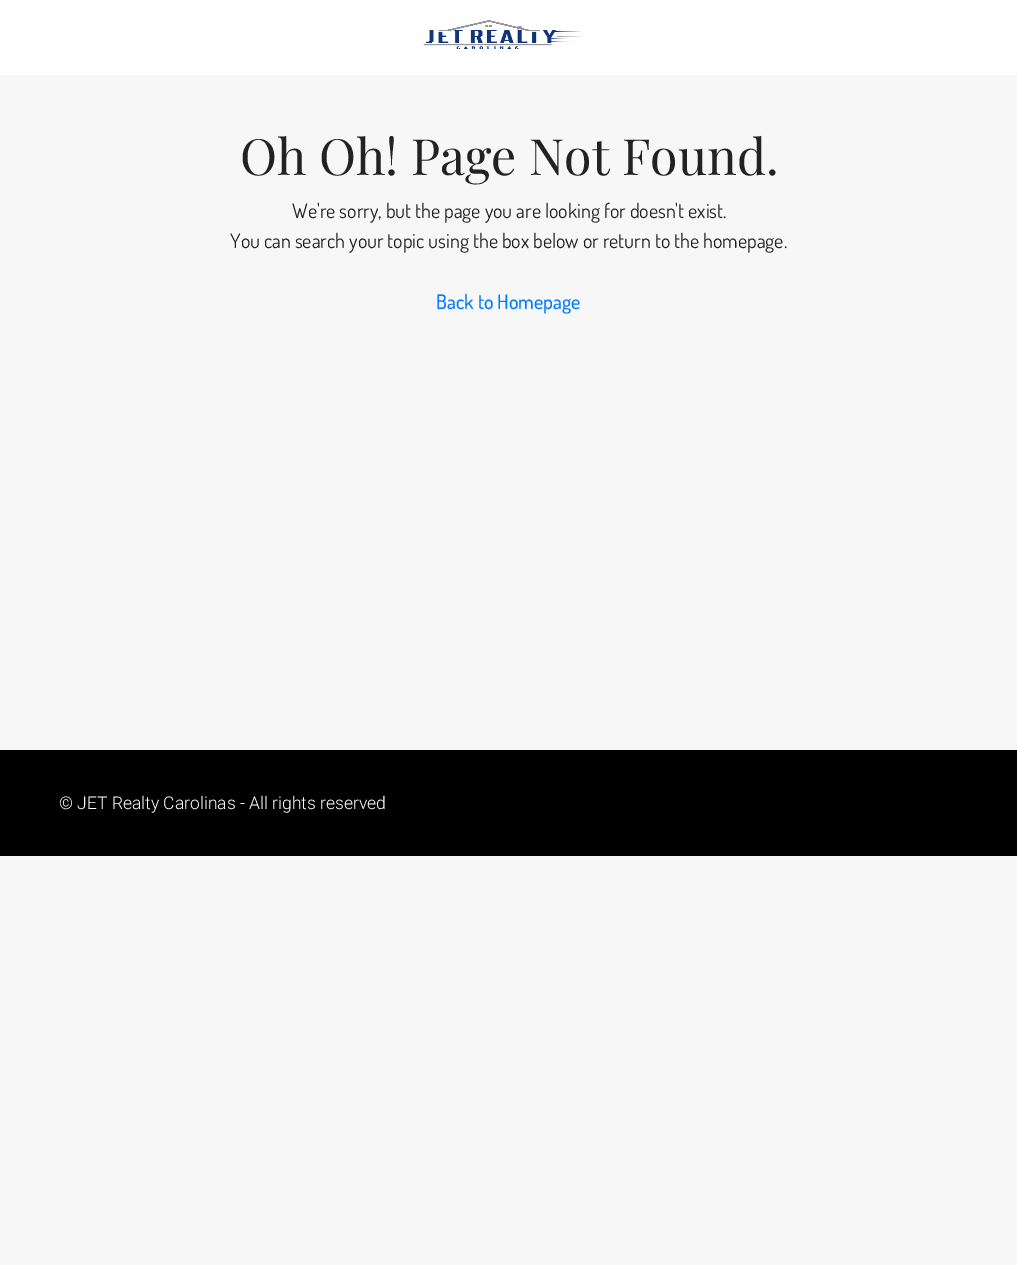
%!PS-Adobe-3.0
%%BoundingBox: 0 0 1017 1265
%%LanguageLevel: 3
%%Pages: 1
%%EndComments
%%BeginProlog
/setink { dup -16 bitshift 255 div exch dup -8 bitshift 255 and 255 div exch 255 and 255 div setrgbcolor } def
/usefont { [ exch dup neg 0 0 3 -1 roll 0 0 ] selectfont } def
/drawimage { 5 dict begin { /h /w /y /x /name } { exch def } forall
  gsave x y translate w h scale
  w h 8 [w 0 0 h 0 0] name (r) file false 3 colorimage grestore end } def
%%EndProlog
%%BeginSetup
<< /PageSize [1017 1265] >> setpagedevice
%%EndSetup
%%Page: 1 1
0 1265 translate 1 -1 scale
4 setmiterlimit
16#F7F7F7 setink
0 0 1017 1265 rectfill
16#FFFFFF setink
0 0 1017 75 rectfill
(img1.raw) 423 20 159 29 drawimage
/PlayfairDisplay-Regular 50 usefont
16#222222 setink
240 175 moveto (Oh Oh! Page Not Found.) show
/Dosis-Regular 20 usefont
292 218 moveto (We're sorry, but the page you are looking for doesn't exist.) show
230 248 moveto (You can search your topic using the box below or return to the homepage.) show
/Dosis-Medium 20 usefont
16#007BFF setink
436 309 moveto (Back to Homepage) show
16#000000 setink
0 750 1017 106 rectfill
/Roboto-Light 17.5 usefont
16#FFFFFF setink
59 809 moveto (© JET Realty Carolinas - All rights reserved) show
showpage
%%EOF
